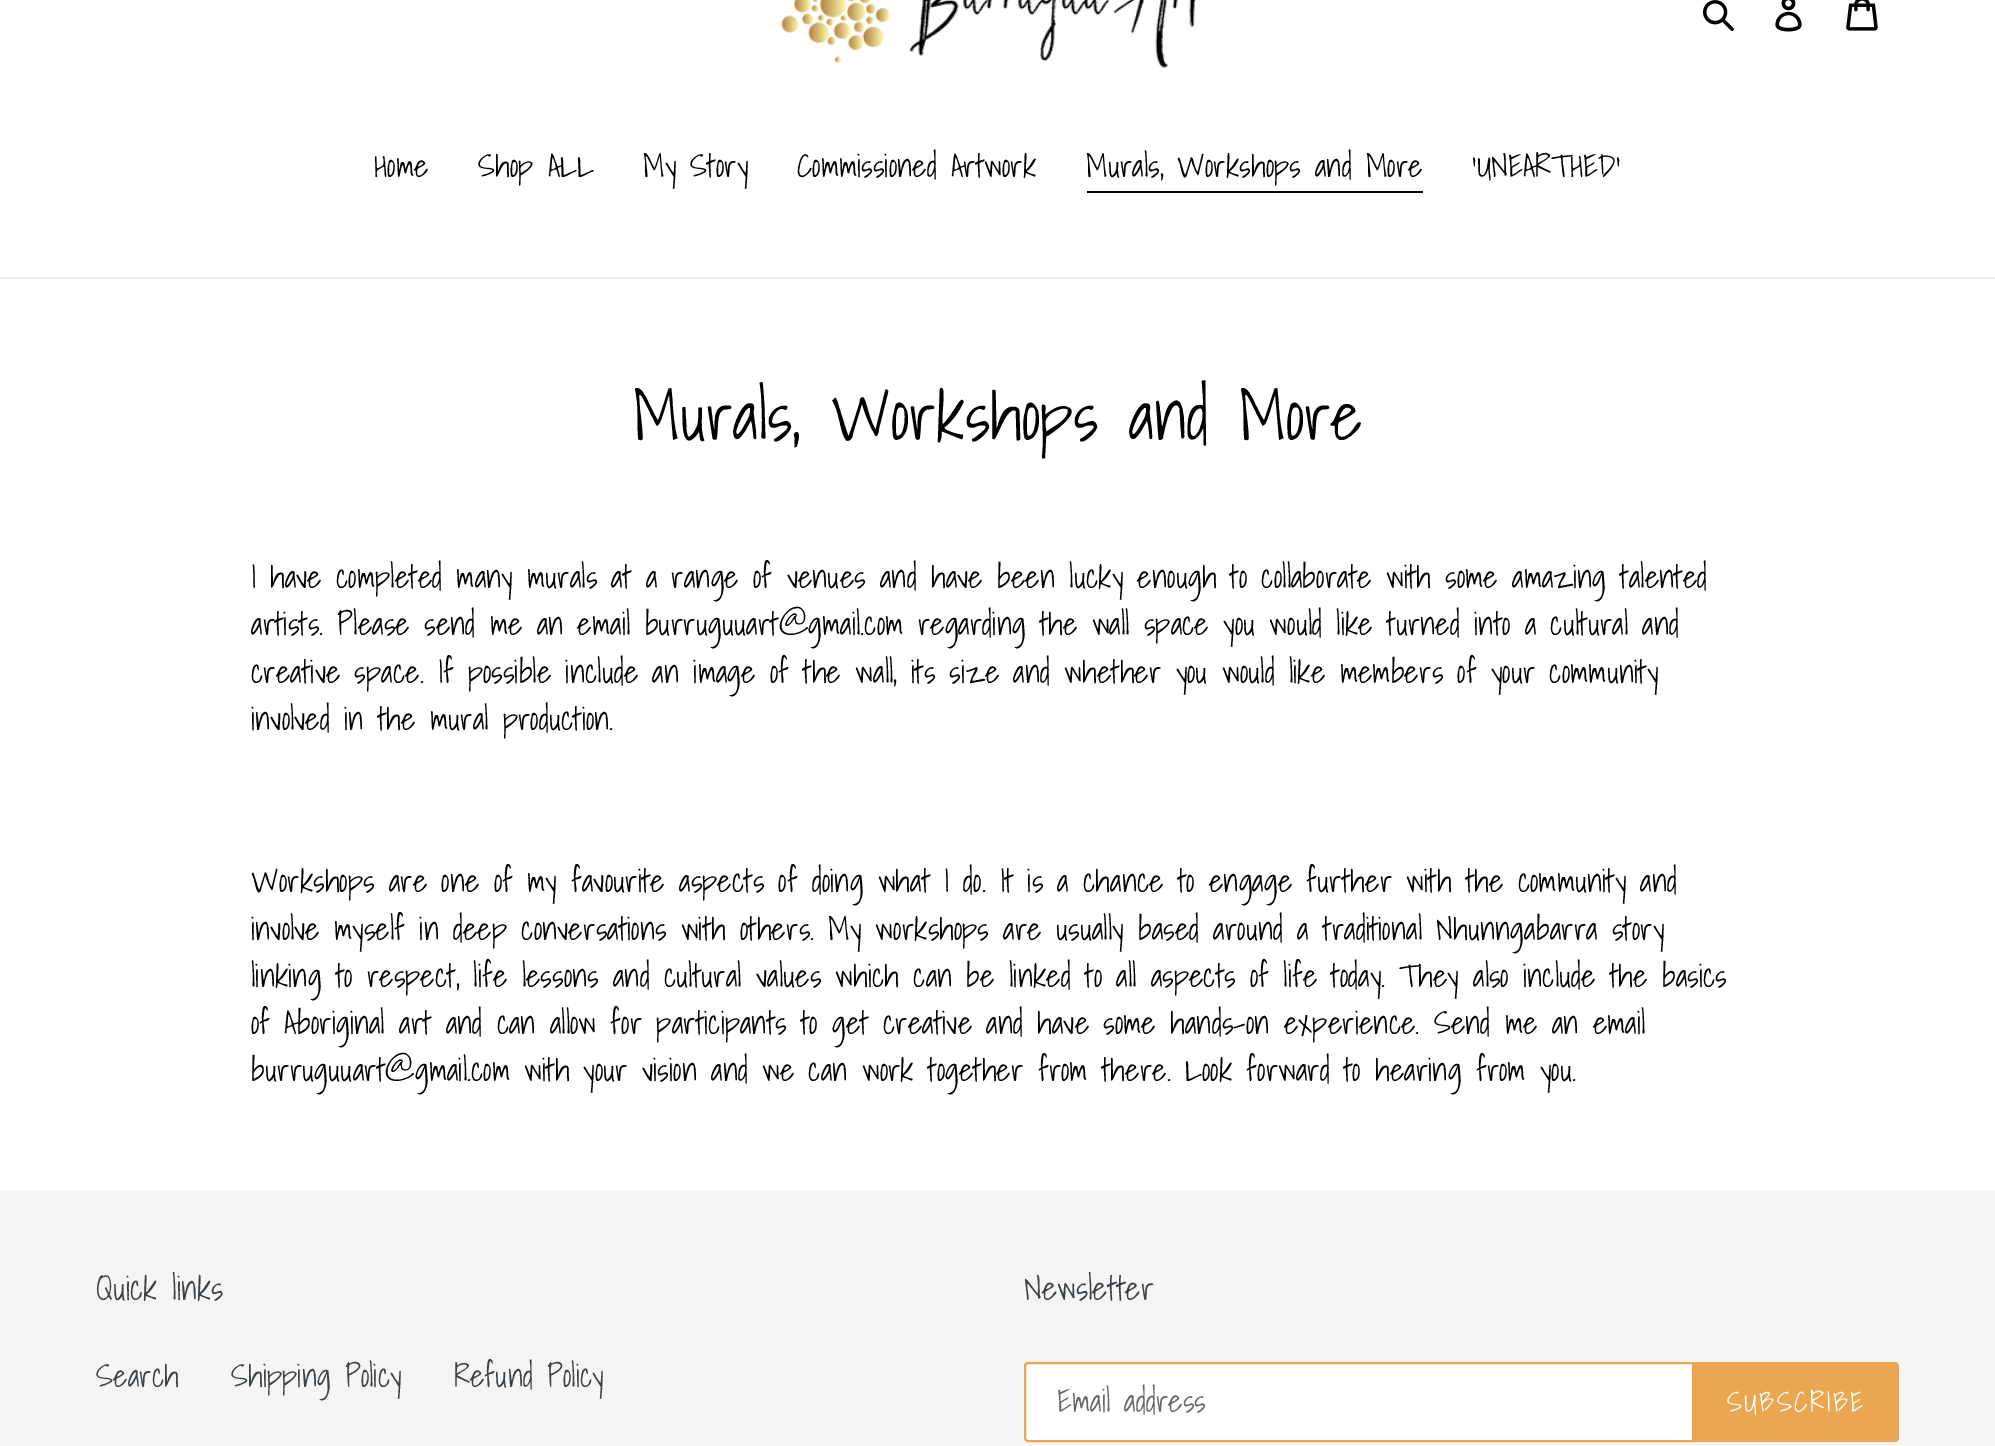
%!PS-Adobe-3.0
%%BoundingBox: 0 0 1995 1446
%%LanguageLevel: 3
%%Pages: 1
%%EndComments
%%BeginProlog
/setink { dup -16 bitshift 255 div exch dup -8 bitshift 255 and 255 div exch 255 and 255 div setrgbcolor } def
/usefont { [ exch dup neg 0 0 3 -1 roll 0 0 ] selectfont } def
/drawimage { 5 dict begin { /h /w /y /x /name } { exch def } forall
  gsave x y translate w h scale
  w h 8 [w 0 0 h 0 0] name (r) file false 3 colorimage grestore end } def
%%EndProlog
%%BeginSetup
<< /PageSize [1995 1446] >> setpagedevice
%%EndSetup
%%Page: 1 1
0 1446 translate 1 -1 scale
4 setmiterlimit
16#FFFFFF setink
0 0 1995 1446 rectfill
(img1.raw) 781 0 415 68 drawimage
(img2.raw) 1703 0 31 31 drawimage
(img3.raw) 1775 0 27 32 drawimage
(img4.raw) 1846 0 32 31 drawimage
16#E8E9EB setink
0 277 1995 2 rectfill
/ShadowsIntoLight-Regular 31.5 usefont
16#000000 setink
[
    [(Home) 374 177]
    [(Shop ALL) 478 177]
    [(My Story) 643 177]
    [(Commissioned Artwork) 797 177]
    [(Murals, Workshops and More) 1086 177]
] { aload pop moveto show } forall
1087 191 336 2 rectfill
1472 177 moveto ('UNEARTHED') show
/ShadowsIntoLight-Regular 68.25 usefont
633 440 moveto (Murals, Workshops and More) show
/ShadowsIntoLight-Regular 31.5 usefont
[
    [(I have completed many murals at a range of venues and have been lucky enough to collaborate with some amazing talented) 251 588]
    [(artists. Please send me an email burruguuart@gmail.com regarding the wall space you would like turned into a cultural and) 251 635]
    [(creative space. If possible include an image of the wall, its size and whether you would like members of your community) 251 683]
    [(involved in the mural production.) 251 730]
    [(Workshops are one of my favourite aspects of doing what I do. It is a chance to engage further with the community and) 251 892]
    [(involve myself in deep conversations with others. My workshops are usually based around a traditional Nhunngabarra story) 251 940]
    [(linking to respect, life lessons and cultural values which can be linked to all aspects of life today. They also include the basics) 251 987]
    [(of Aboriginal art and can allow for participants to get creative and have some hands-on experience. Send me an email) 251 1034]
    [(burruguuart@gmail.com with your vision and we can work together from there. Look forward to hearing from you.) 251 1081]
] { aload pop moveto show } forall
16#F5F5F5 setink
0 1190 1995 256 rectfill
/ShadowsIntoLight-Regular 33 usefont
16#3D4246 setink
96 1300 moveto (Quick links) show
/ShadowsIntoLight-Regular 31.5 usefont
[
    [(Search) 96 1387]
    [(Shipping Policy) 231 1387]
    [(Refund Policy) 454 1387]
] { aload pop moveto show } forall
/ShadowsIntoLight-Regular 33 usefont
1024 1300 moveto (Newsletter) show
16#FFFFFF setink
1028 1363 moveto 1693 1363 lineto 1693 1441 lineto 1028 1441 lineto 1026.5 1441 1025 1439.5 1025 1438 curveto 1025 1366 lineto 1025 1364.5 1026.5 1363 1028 1363 curveto closepath gsave fill grestore
16#EBA652 setink
2 setlinewidth
stroke
/ShadowsIntoLight-Regular 31.5 usefont
16#666666 setink
1057 1412 moveto (Email address) show
16#EBA652 setink
1694 1362 moveto 1895 1362 lineto 1897 1362 1899 1364 1899 1366 curveto 1899 1438 lineto 1899 1440 1897 1442 1895 1442 curveto 1694 1442 lineto closepath fill
/ShadowsIntoLight-Regular 28 usefont
16#FFFFFF setink
1727 1412 moveto 2.25 0 (SUBSCRIBE) ashow
showpage
%%EOF
